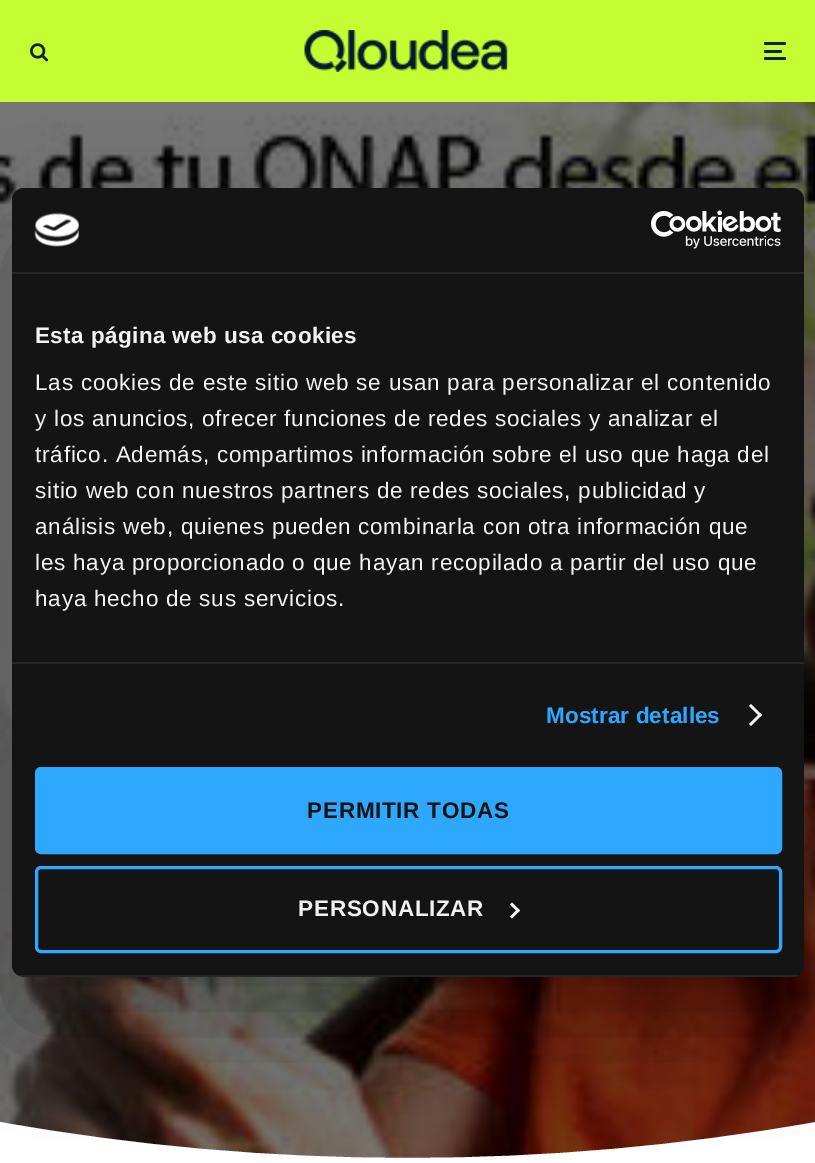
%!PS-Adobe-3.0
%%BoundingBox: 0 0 815 1163
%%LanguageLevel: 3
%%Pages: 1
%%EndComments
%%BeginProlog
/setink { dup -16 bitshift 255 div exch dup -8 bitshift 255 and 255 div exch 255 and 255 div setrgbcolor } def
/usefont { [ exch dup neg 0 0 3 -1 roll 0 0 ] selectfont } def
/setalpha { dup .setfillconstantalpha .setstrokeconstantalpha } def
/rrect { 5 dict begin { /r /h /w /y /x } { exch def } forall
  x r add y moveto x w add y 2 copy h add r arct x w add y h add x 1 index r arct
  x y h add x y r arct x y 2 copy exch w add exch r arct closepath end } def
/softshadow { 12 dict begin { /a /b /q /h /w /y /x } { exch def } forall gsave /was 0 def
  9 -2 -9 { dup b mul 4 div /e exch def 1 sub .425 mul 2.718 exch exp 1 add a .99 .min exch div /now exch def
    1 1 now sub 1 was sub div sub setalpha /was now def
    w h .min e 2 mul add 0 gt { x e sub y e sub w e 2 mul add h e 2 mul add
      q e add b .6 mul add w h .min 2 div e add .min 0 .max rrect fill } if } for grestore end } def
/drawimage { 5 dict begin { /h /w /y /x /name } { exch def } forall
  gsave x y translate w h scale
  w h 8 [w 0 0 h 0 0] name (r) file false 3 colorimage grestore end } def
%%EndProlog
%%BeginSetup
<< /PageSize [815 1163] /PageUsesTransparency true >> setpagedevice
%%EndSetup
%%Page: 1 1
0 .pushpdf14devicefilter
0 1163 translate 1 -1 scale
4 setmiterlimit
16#FFFFFF setink
0 0 815 1163 rectfill
16#C3FE33 setink
0 0 815 102 rectfill
(img1.raw) 30 43 19 19 drawimage
(img2.raw) 304 30 204 42 drawimage
16#112230 setink
764 50 18 3 1.5 rrect fill
764 42 22 3 1.5 rrect fill
764 57 22 3 1.5 rrect fill
(img3.raw) 0 102 815 1056 drawimage
gsave
0 1122 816 39 rectclip
16#FFFFFF setink
0 1122 moveto 269 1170 546 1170 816 1122 curveto 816 1163 lineto 0 1163 lineto closepath fill
grestore
16#000000 setink
12 236 792 789 12 51 0.3 softshadow
16#141414 setink
12 188 792 789 12 rrect fill
16#272727 setink
12 272 792 2 rectfill
(img4.raw) 34 212 46 35 drawimage
(img5.raw) 651 210 130 39 drawimage
12 662 792 2 rectfill
/LiberationSans-Bold 22.5 usefont
16#F2F2F2 setink
35 343 moveto 0.4 0 (Esta página web usa cookies) ashow
/LiberationSans-Regular 22.5 usefont
35 390 moveto 0.75 0 (Las cookies de este sitio web se usan para personalizar el contenido) ashow
35 426 moveto 0.75 0 (y los anuncios, ofrecer funciones de redes sociales y analizar el) ashow
35 462 moveto 0.75 0 (tráfico. Además, compartimos información sobre el uso que haga del) ashow
35 498 moveto 0.75 0 (sitio web con nuestros partners de redes sociales, publicidad y) ashow
35 534 moveto 0.75 0 (análisis web, quienes pueden combinarla con otra información que) ashow
35 570 moveto 0.75 0 (les haya proporcionado o que hayan recopilado a partir del uso que) ashow
35 606 moveto 0.75 0 (haya hecho de sus servicios.) ashow
/LiberationSans-Bold 22.5 usefont
16#2EA7FF setink
546 723 moveto 0.1 0 (Mostrar detalles) ashow
16#F2F2F2 setink
751 704 moveto 762 715 lineto 760 717 lineto 749 706 lineto closepath fill
760 713 moveto 762 715 lineto 751 726 lineto 749 724 lineto closepath fill
gsave
12 188 792 789 12 rrect clip newpath
0.08 setalpha
16#FFFFFF setink
12 975 792 2 rectfill
grestore
16#2EA7FF setink
36.5 768.5 744 84 4.5 rrect gsave fill grestore
3 setlinewidth
stroke
16#141414 setink
307 818 moveto 0.75 0 (PERMITIR TODAS) ashow
16#2EA7FF setink
36.5 867.5 744 84 4.5 rrect stroke
16#F2F2F2 setink
298 916 moveto 0.75 0 (PERSONALIZAR) ashow
512 902.5 moveto 520 910.5 lineto 518 912.5 lineto 510 904.5 lineto closepath fill
518 908.5 moveto 520 910.5 lineto 512 918.5 lineto 510 916.5 lineto closepath fill
.poppdf14devicefilter showpage
%%EOF
